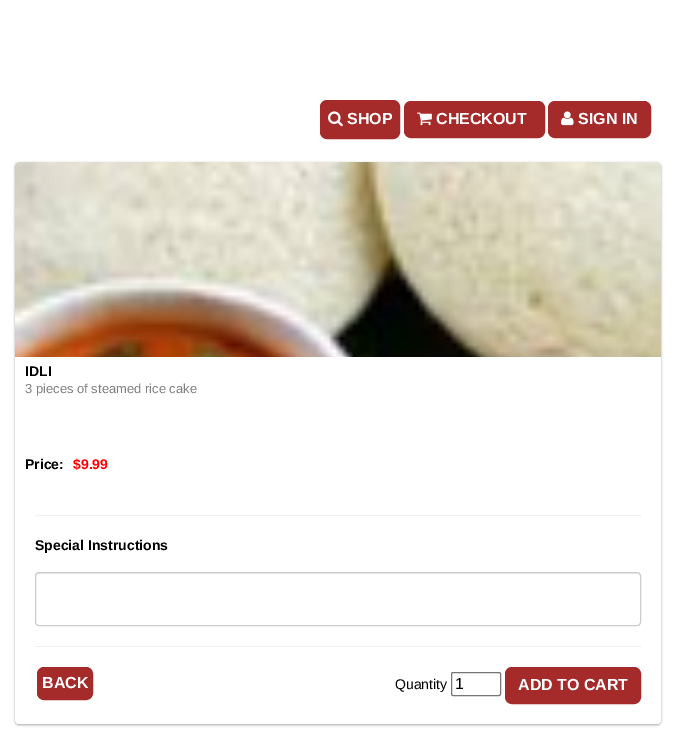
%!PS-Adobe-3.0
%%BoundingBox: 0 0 676 739
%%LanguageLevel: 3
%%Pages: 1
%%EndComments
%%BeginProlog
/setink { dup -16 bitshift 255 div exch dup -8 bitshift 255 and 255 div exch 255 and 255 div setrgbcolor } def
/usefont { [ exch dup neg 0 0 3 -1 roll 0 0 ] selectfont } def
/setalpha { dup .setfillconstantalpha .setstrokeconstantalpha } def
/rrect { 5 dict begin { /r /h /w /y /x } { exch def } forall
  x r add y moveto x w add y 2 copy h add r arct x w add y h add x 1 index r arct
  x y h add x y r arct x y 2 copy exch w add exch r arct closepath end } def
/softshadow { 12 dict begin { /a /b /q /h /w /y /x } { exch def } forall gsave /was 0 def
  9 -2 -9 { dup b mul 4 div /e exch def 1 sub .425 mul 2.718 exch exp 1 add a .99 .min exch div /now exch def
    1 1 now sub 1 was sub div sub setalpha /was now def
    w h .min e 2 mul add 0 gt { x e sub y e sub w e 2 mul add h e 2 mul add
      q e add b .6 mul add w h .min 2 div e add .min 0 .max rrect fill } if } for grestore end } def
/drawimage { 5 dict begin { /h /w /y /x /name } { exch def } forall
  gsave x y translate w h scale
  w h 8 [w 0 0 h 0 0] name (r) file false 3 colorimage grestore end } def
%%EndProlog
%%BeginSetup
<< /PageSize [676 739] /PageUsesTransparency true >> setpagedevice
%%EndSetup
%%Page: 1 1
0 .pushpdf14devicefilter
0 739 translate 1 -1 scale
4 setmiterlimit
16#FFFFFF setink
0 0 676 739 rectfill
16#A52A2A setink
320.5 100.5 79 38 6.5 rrect gsave fill grestore
stroke
(img1.raw) 328 111 15 16 drawimage
/LiberationSans-Bold 16 usefont
16#FFFFFF setink
347 124 moveto (SHOP) show
16#A52A2A setink
404.5 101.5 140 36 6.5 rrect gsave fill grestore
stroke
(img2.raw) 417 112 15 14 drawimage
16#FFFFFF setink
436 124 moveto (CHECKOUT) show
16#A52A2A setink
548.5 101.5 102 36 6.5 rrect gsave fill grestore
stroke
(img3.raw) 561 111 13 15 drawimage
16#FFFFFF setink
578 124 moveto (SIGN IN) show
16#000000 setink
15 163 646 562 4 1 0.24 softshadow
15 163 646 562 4 1.5 0.12 softshadow
16#FFFFFF setink
15 162 646 562 4 rrect fill
(img4.raw) 15 162 646 195 drawimage
/LiberationSans-Bold 14 usefont
16#000000 setink
25 376 moveto (IDLI) show
/LiberationSans-Regular 13 usefont
16#808080 setink
25 393 moveto (3 pieces of steamed rice cake) show
/LiberationSans-Bold 14 usefont
16#000000 setink
25 469 moveto (Price:) show
16#FF0000 setink
73 469 moveto ($9.99) show
16#EEEEEE setink
35 515 606 1 rectfill
16#000000 setink
35 550 moveto (Special Instructions) show
16#ECECEC setink
39 574 moveto 637 574 lineto 639 574 640 575 640 577 curveto 640 576 lineto 640 574 639 573 637 573 curveto 39 573 lineto 37 573 36 574 36 576 curveto 36 577 lineto 36 575 37 574 39 574 curveto closepath fill
16#CCCCCC setink
35.5 572.5 605 53 3.5 rrect stroke
16#EEEEEE setink
35 646 606 1 rectfill
16#A52A2A setink
37.5 667.5 55 32 6.5 rrect gsave fill grestore
stroke
/LiberationSans-Bold 16 usefont
16#FFFFFF setink
42 688 moveto (BACK) show
/LiberationSans-Regular 14 usefont
16#000000 setink
395 689 moveto (Quantity) show
16#767676 setink
451.5 672.5 49 23 1.5 rrect stroke
/LiberationSans-Regular 16 usefont
16#000000 setink
455 689 moveto (1) show
16#A52A2A setink
505.5 667.5 135 36 6.5 rrect gsave fill grestore
stroke
/LiberationSans-Bold 16 usefont
16#FFFFFF setink
518 690 moveto (ADD TO CART) show
.poppdf14devicefilter showpage
%%EOF
